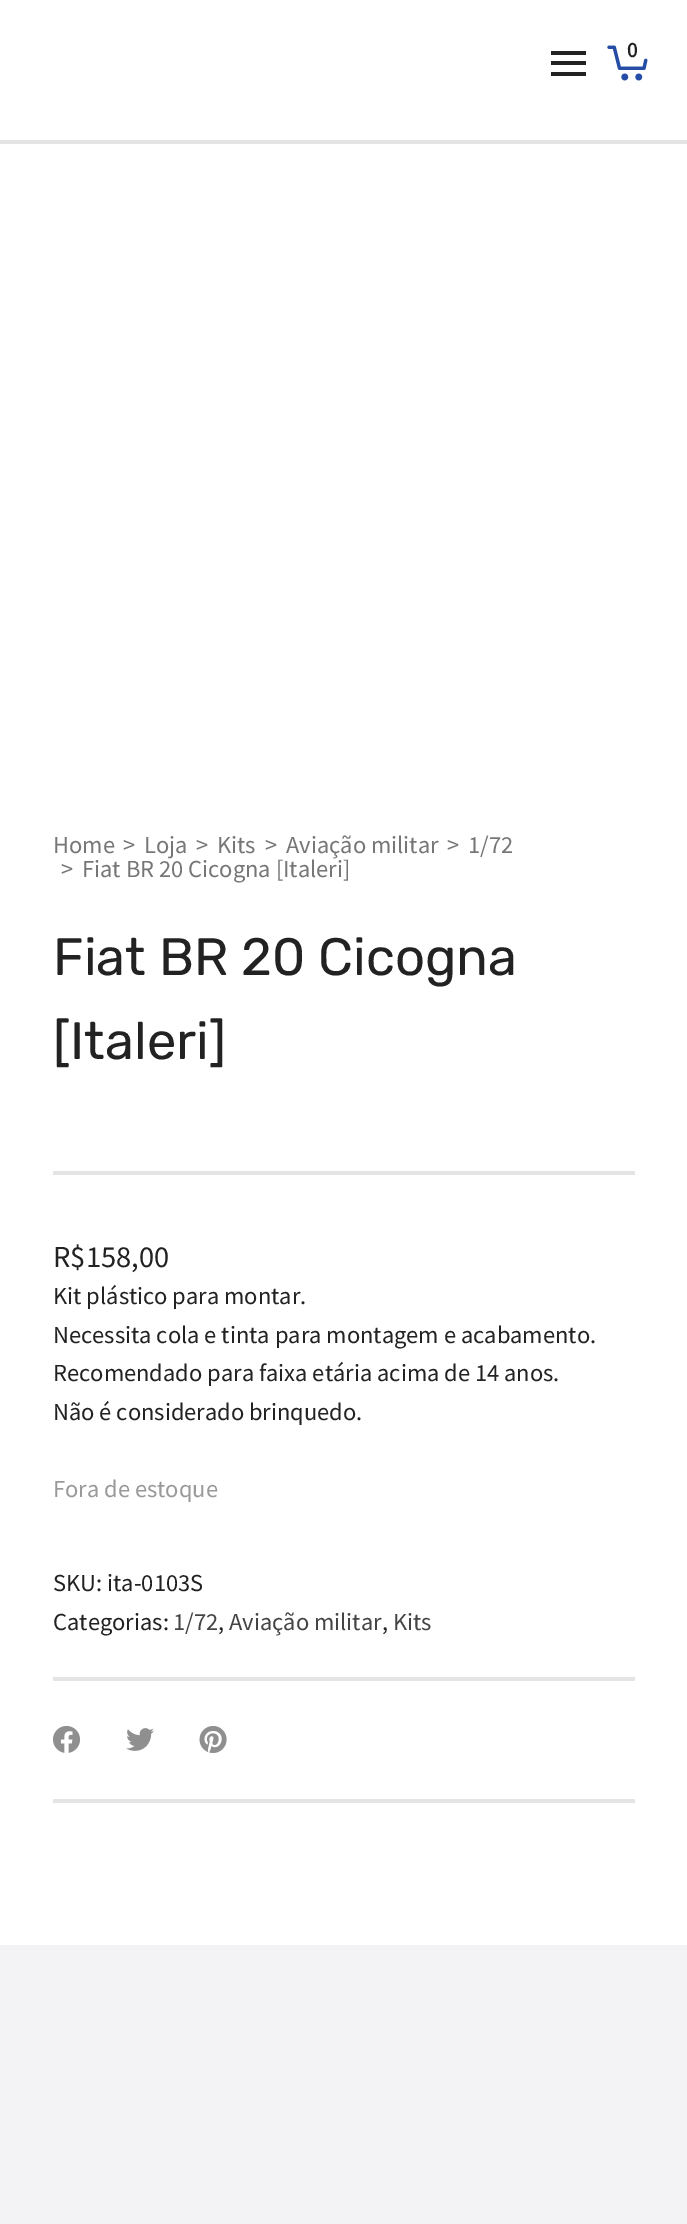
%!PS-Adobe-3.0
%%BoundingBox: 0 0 687 2224
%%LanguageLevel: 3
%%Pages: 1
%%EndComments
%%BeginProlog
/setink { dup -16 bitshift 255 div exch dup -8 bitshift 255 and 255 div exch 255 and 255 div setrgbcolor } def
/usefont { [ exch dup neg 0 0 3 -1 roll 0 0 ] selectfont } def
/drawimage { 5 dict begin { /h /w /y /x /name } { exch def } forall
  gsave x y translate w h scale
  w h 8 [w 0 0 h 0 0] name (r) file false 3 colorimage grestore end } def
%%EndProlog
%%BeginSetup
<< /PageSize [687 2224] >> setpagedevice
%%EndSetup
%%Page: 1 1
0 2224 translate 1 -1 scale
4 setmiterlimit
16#FFFFFF setink
0 0 687 2224 rectfill
[
    [0 140 687 4 16#E4E4E4]
    [551 61 35 4 16#222222]
    [551 51 35 4 16#222222]
    [551 72 35 4 16#222222]
] { aload pop setink rectfill } forall
(img1.raw) 607 45 41 36 drawimage
/SourceSansPro-Bold 21 usefont
627 57 moveto (0) show
16#E4E4E4 setink
53 1171 582 4 rectfill
/SourceSansPro-Regular 24.5 usefont
16#767676 setink
[
    [(Home) 53 853]
    [(>) 123 853]
    [(Loja) 144 853]
    [(>) 196 853]
    [(Kits) 217 853]
    [(>) 265 853]
    [(Aviação militar) 286 853]
    [(>) 447 853]
    [(1/72) 468 853]
    [(>) 61 877]
    [(Fiat BR 20 Cicogna [Italeri]) 82 877]
] { aload pop moveto show } forall
/Rubik-Regular 52.5 usefont
16#222222 setink
53 975 moveto (Fiat BR 20 Cicogna) show
53 1059 moveto ([Italeri]) show
/SourceSansPro-Regular 30.5 usefont
53 1267 moveto (R$158,00) show
/SourceSansPro-Regular 24.5 usefont
[
    [(Kit plástico para montar.) 53 1304]
    [(Necessita cola e tinta para montagem e acabamento.) 53 1343]
    [(Recomendado para faixa etária acima de 14 anos.) 53 1381]
    [(Não é considerado brinquedo.) 53 1420]
] { aload pop moveto show } forall
16#999999 setink
53 1497 moveto (Fora de estoque) show
16#222222 setink
53 1591 moveto (SKU: ita-0103S) show
53 1630 moveto (Categorias:) show
16#444444 setink
173 1630 moveto (1/72) show
16#222222 setink
218 1630 moveto (,) show
16#444444 setink
229 1630 moveto (Aviação militar) show
16#222222 setink
382 1630 moveto (,) show
16#444444 setink
393 1630 moveto (Kits) show
16#E4E4E4 setink
53 1677 582 4 rectfill
53 1799 582 4 rectfill
(img2.raw) 52 1725 29 28 drawimage
(img3.raw) 126 1728 28 23 drawimage
(img4.raw) 199 1726 28 27 drawimage
16#F3F3F5 setink
0 1945 687 279 rectfill
showpage
%%EOF
